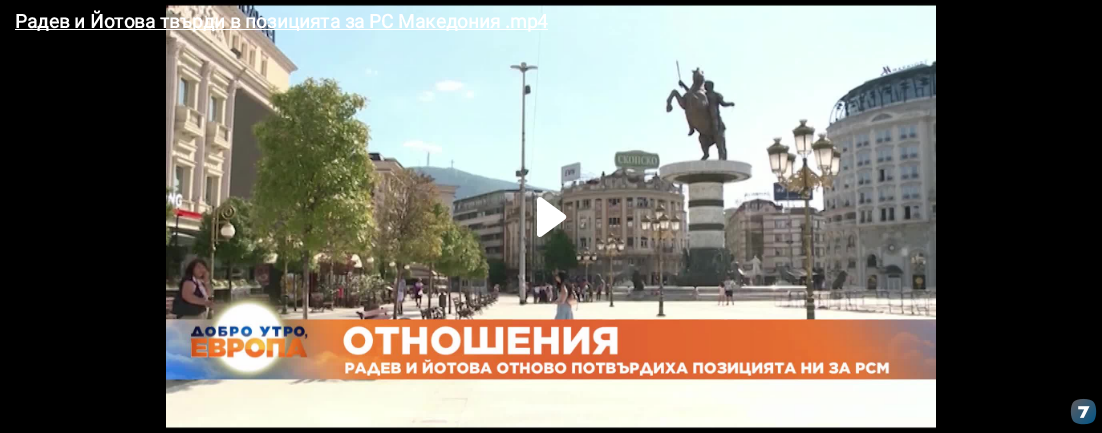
%!PS-Adobe-3.0
%%BoundingBox: 0 0 1102 433
%%LanguageLevel: 3
%%Pages: 1
%%EndComments
%%BeginProlog
/setink { dup -16 bitshift 255 div exch dup -8 bitshift 255 and 255 div exch 255 and 255 div setrgbcolor } def
/usefont { [ exch dup neg 0 0 3 -1 roll 0 0 ] selectfont } def
/drawimage { 5 dict begin { /h /w /y /x /name } { exch def } forall
  gsave x y translate w h scale
  w h 8 [w 0 0 h 0 0] name (r) file false 3 colorimage grestore end } def
%%EndProlog
%%BeginSetup
<< /PageSize [1102 433] >> setpagedevice
%%EndSetup
%%Page: 1 1
0 433 translate 1 -1 scale
4 setmiterlimit
16#000000 setink
0 0 1102 433 rectfill
(img1.raw) 166 3 770 426 drawimage
16#FFFFFF setink
15 29 533 1 rectfill
/Roboto-Bold 19 usefont
15 28 moveto (Радев и Йотова твърди в позицията за РС Македония .mp4) show
564 214 moveto 567 216 567 218 564 220 curveto 542 236 lineto 539 238 537 236 537 234 curveto 537 201 lineto 537 198 539 196 542 198 curveto closepath fill
(img2.raw) 1070 398 27 27 drawimage
showpage
%%EOF
